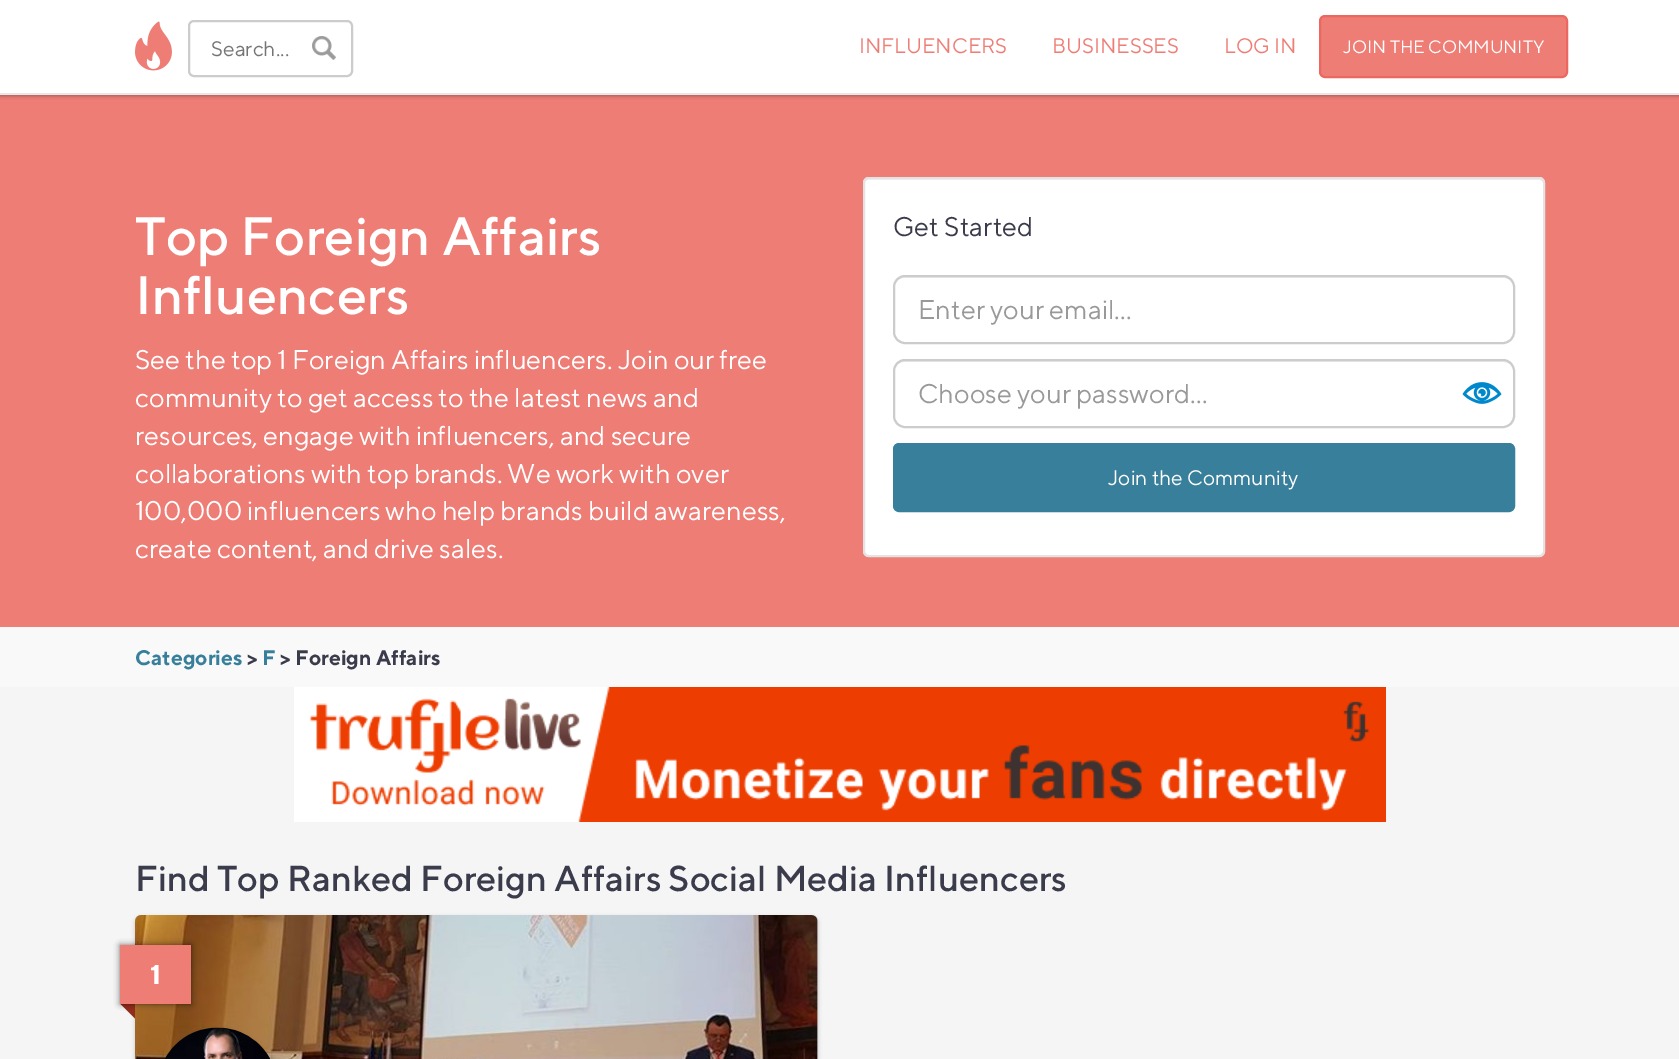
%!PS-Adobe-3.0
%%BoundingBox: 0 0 1679 1059
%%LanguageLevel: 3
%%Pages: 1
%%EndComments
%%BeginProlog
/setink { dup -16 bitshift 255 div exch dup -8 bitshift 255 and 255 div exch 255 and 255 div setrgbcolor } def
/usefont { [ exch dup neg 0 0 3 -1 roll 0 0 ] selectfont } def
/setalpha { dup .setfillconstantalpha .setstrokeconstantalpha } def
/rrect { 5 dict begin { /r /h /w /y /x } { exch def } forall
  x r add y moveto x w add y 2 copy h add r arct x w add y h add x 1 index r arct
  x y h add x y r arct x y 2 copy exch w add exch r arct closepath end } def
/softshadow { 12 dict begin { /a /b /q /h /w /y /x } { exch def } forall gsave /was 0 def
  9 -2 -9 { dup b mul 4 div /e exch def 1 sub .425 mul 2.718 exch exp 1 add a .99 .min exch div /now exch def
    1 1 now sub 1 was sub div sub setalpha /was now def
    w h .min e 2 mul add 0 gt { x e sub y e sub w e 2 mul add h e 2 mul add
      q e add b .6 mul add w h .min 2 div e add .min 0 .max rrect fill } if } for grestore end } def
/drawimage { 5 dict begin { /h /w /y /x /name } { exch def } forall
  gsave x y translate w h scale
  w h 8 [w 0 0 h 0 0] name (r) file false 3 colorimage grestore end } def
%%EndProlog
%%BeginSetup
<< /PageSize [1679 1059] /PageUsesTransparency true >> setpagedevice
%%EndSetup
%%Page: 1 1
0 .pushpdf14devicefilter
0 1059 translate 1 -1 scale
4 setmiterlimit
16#F5F5F6 setink
0 0 1679 1059 rectfill
16#EE7D76 setink
0 95 1679 532 rectfill
16#000000 setink
0 2 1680 94 0 2 0.3 softshadow
16#FFFFFF setink
0 0 1679 93 rectfill
16#E7E7E7 setink
0 93 1679 2 rectfill
(img1.raw) 135 21 37 50 drawimage
(img2.raw) 312 36 24 24 drawimage
16#CCCCCC setink
2 setlinewidth
189 21 163 55 5 rrect stroke
/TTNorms-Regular 21 usefont
16#757575 setink
211 56 moveto (Search...) show
16#EE7D76 setink
[
    [(INFLUENCERS) 859 53]
    [(BUSINESSES) 1052 53]
    [(LOG IN) 1224 53]
] { aload pop moveto show } forall
1320 16 247 61 5 rrect gsave fill grestore
16#EB675F setink
stroke
/TTNorms-Regular 18 usefont
16#FFFFFF setink
1343 53 moveto (JOIN THE COMMUNITY) show
/TTNorms-Medium 54 usefont
135 255 moveto (Top Foreign Affairs) show
135 314 moveto (Influencers) show
/TTNorms-Regular 27 usefont
[
    [(See the top 1 Foreign Affairs influencers. Join our free) 135 369]
    [(community to get access to the latest news and) 135 407]
    [(resources, engage with influencers, and secure) 135 445]
    [(collaborations with top brands. We work with over) 135 483]
    [(100,000 influencers who help brands build awareness,) 135 520]
    [(create content, and drive sales.) 135 558]
] { aload pop moveto show } forall
863 177 682 380 6 rrect fill
16#F2F2F2 setink
868 180 moveto 1539 180 lineto 1541 180 1544 182 1544 184 curveto 1544 181 1542 179 1539 179 curveto 869 179 lineto 866 179 864 181 864 184 curveto 864 182 866 180 868 180 curveto closepath fill
16#E3E3E3 setink
864 178 680 378 5 rrect stroke
16#3B3C4B setink
893 236 moveto (Get Started) show
16#ECECEC setink
904 278 moveto 1503 278 lineto 1509 278 1514 282 1514 288 curveto 1514 282 1510 276 1503 276 curveto 905 276 lineto 898 276 894 282 894 288 curveto 894 282 899 278 904 278 curveto closepath fill
16#CCCCCC setink
894 276 620 67 11 rrect stroke
16#999999 setink
918 319 moveto (Enter your email...) show
16#ECECEC setink
904 362 moveto 1503 362 lineto 1509 362 1514 366 1514 372 curveto 1514 366 1510 360 1503 360 curveto 905 360 lineto 898 360 894 366 894 372 curveto 894 366 899 362 904 362 curveto closepath fill
16#CCCCCC setink
894 360 620 67 11 rrect stroke
16#999999 setink
918 403 moveto (Choose your password...) show
(img3.raw) 1462 382 40 22 drawimage
16#387F9B setink
894 444 620 67 5 rrect gsave fill grestore
stroke
/TTNorms-Regular 21 usefont
16#FFFFFF setink
1108 485 moveto (Join the Community) show
16#F9F9F9 setink
0 627 1679 60 rectfill
/TTNorms-Bold 21 usefont
16#387F9B setink
135 665 moveto (Categories) show
16#3B3C4B setink
247 665 moveto (>) show
16#387F9B setink
262 665 moveto (F) show
16#3B3C4B setink
280 665 moveto (> Foreign Affairs) show
(img4.raw) 294 687 1092 135 drawimage
/TTNorms-Medium 36 usefont
135 891 moveto (Find Top Ranked Foreign Affairs Social Media Influencers) show
16#000000 setink
135 917 683 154 6 2 0.2 softshadow
16#B2B2B2 setink
141 915 moveto 812 915 lineto 815.5 915 818 917.5 818 921 curveto 818 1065 lineto 135 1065 lineto 135 921 lineto 135 917.5 137.5 915 141 915 curveto closepath fill
(img5.raw) 135 915 683 144 drawimage
(img6.raw) 135 915 683 144 drawimage
16#000000 setink
158 1031 120 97 60 3 0.2 softshadow
(img7.raw) 164 1027 107 32 drawimage
16#932C1C setink
135 1003.5 moveto 135 1018.5 lineto 120 1003.5 lineto closepath fill
16#000000 setink
120 945 71 59 0 3 0.55 softshadow
16#EE7D76 setink
120 945 71 59 rectfill
/TTNorms-Bold 27 usefont
16#FFFFFF setink
150 984 moveto (1) show
.poppdf14devicefilter showpage
%%EOF
